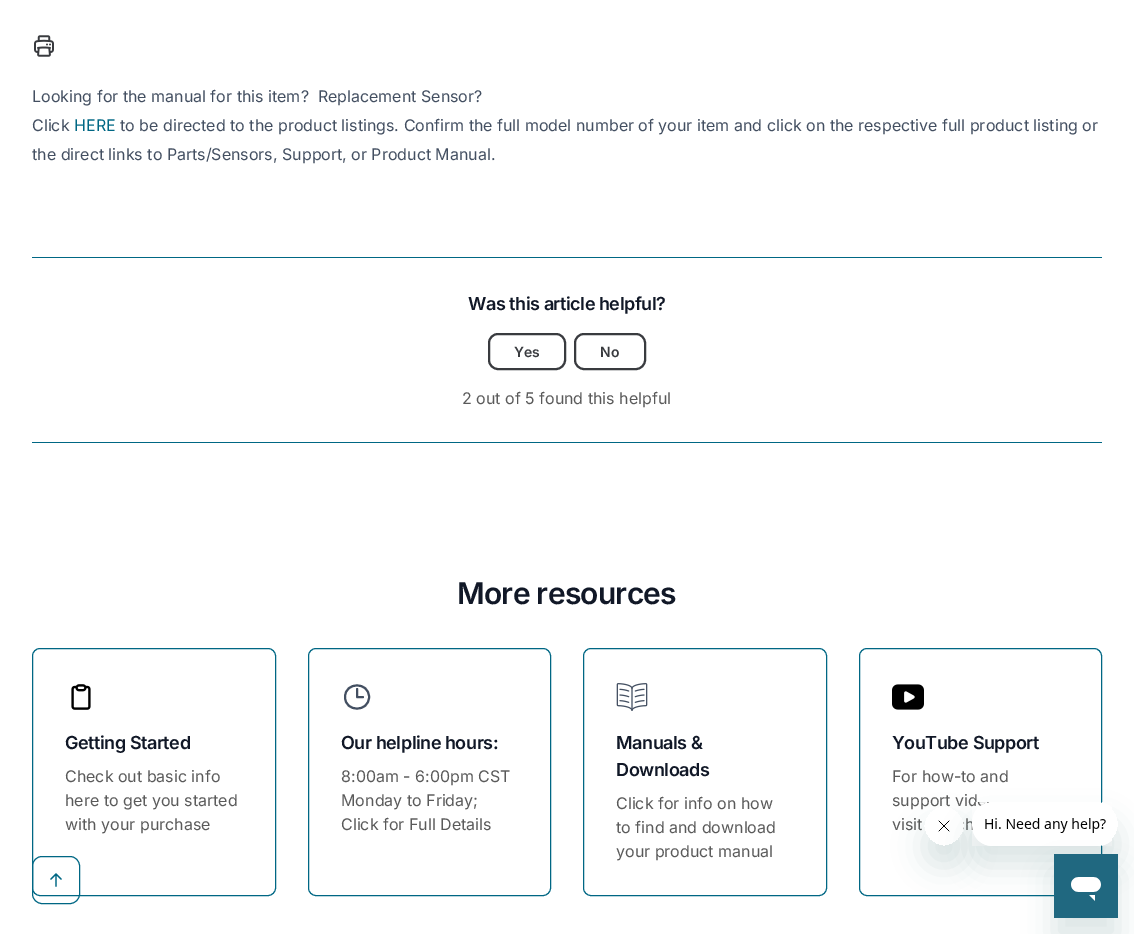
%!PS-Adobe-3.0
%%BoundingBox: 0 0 1134 934
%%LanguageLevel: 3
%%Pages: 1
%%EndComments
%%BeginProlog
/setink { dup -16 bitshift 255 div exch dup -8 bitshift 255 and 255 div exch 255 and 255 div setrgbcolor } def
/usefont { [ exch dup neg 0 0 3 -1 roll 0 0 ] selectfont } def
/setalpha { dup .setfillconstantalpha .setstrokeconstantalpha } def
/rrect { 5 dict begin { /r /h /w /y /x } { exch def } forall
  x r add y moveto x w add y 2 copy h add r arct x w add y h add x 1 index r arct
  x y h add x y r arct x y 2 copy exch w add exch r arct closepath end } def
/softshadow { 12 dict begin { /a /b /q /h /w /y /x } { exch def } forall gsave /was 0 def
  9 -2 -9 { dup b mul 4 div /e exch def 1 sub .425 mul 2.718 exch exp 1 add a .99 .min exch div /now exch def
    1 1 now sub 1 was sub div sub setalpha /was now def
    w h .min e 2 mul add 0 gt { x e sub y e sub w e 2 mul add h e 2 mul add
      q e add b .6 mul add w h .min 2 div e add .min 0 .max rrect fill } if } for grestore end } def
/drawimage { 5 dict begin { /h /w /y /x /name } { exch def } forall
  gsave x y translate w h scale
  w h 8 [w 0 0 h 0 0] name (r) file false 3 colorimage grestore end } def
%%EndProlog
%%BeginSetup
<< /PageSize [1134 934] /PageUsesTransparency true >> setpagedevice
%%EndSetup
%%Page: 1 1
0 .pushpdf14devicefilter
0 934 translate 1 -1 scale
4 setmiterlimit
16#FFFFFF setink
0 0 1134 934 rectfill
(img1.raw) 34 35 20 22 drawimage
/Inter-Regular 16 usefont
16#434F61 setink
32 102 moveto (Looking for the manual for this item?  Replacement Sensor?) show
32 131 moveto (Click) show
16#006784 setink
74 131 moveto (HERE) show
16#434F61 setink
120 131 moveto (to be directed to the product listings. Confirm the full model number of your item and click on the respective full product listing or) show
32 160 moveto (the direct links to Parts/Sensors, Support, or Product Manual.) show
16#006784 setink
32 257 1070 1 rectfill
32 442 1070 1 rectfill
/Inter-SemiBold 18 usefont
16#111827 setink
468 310 moveto -0.45 0 (Was this article helpful?) ashow
16#393B3F setink
2 setlinewidth
489 334 76 35 9 rrect stroke
/Inter-SemiBold 14 usefont
514 357 moveto (Yes) show
575 334 70 35 9 rrect stroke
600 357 moveto (No) show
/Inter-Regular 16 usefont
16#5A5A5A setink
462 404 moveto (2 out of 5 found this helpful) show
/Inter-SemiBold 30 usefont
16#111827 setink
457 604 moveto -0.75 0 (More resources) ashow
16#006784 setink
1 setlinewidth
32.5 648.5 243 247 7.5 rrect stroke
(img2.raw) 71 684 20 26 drawimage
/Inter-SemiBold 18 usefont
16#111827 setink
65 749 moveto -0.45 0 (Getting Started) ashow
/Inter-Regular 16 usefont
16#5A5A5A setink
[
    [(Check out basic info) 65 782]
    [(here to get you started) 65 806]
    [(with your purchase) 65 830]
] { aload pop moveto show } forall
16#006784 setink
308.5 648.5 242 247 7.5 rrect stroke
16#434F61 setink
2 setlinewidth
1 setlinecap
1 setlinejoin
357 689 moveto 357 697 lineto 363 697 lineto 369 697 moveto 369 712.5 345 712.5 345 697 curveto 345 681.5 369 681.5 369 697 curveto closepath stroke
/Inter-SemiBold 18 usefont
16#111827 setink
341 749 moveto -0.45 0 (Our helpline hours:) ashow
/Inter-Regular 16 usefont
16#5A5A5A setink
[
    [(8:00am - 6:00pm CST) 341 782]
    [(Monday to Friday;) 341 806]
    [(Click for Full Details) 341 830]
] { aload pop moveto show } forall
16#006784 setink
1 setlinewidth
0 setlinecap
0 setlinejoin
583.5 648.5 243 247 7.5 rrect stroke
(img3.raw) 616 683 32 28 drawimage
/Inter-SemiBold 18 usefont
16#111827 setink
616 749 moveto -0.45 0 (Manuals &) ashow
616 776 moveto -0.45 0 (Downloads) ashow
/Inter-Regular 16 usefont
16#5A5A5A setink
[
    [(Click for info on how) 616 809]
    [(to find and download) 616 833]
    [(your product manual) 616 857]
] { aload pop moveto show } forall
16#006784 setink
859.5 648.5 242 247 7.5 rrect stroke
(img4.raw) 892 684 32 26 drawimage
/Inter-SemiBold 18 usefont
16#111827 setink
892 749 moveto -0.45 0 (YouTube Support) ashow
/Inter-Regular 16 usefont
16#5A5A5A setink
[
    [(For how-to and) 892 782]
    [(support vid) 892 806]
    [(visit) 892 830]
    [(h) 965 830]
] { aload pop moveto show } forall
16#006784 setink
32.5 856.5 47 47 9.5 rrect stroke
1.3 setlinewidth
1 setlinecap
1 setlinejoin
51 879 moveto 56 874 lineto 56 874 moveto 61 879 lineto 56 874 moveto 56 886 lineto stroke
gsave
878 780 moveto 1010 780 lineto 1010 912 lineto 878 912 lineto closepath 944 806 moveto 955 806 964 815 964 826 curveto 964 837 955 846 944 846 curveto 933 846 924 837 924 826 curveto 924 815 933 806 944 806 curveto closepath eoclip newpath
16#17494D setink
924 826 40 40 20 15 0.15 softshadow
grestore
(img6.raw) 927 820 37 12 drawimage
gsave
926 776 moveto 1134 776 lineto 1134 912 lineto 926 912 lineto closepath 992 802 moveto 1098 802 lineto 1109 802 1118 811 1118 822 curveto 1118 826 lineto 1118 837 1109 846 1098 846 curveto 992 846 lineto 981 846 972 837 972 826 curveto 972 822 lineto 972 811 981 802 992 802 curveto closepath eoclip newpath
16#17494D setink
972 822 146 44 20 15 0.15 softshadow
grestore
(img5.raw) 972 802 140 44 drawimage
16#17494D setink
1054 874 64 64 0 15 0.15 softshadow
(img7.raw) 1054 854 64 64 drawimage
.poppdf14devicefilter showpage
%%EOF
